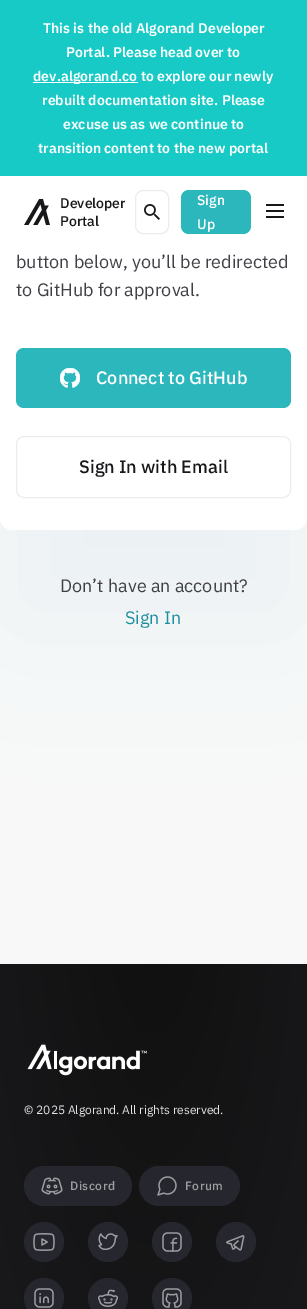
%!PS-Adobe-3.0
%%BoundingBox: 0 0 307 1309
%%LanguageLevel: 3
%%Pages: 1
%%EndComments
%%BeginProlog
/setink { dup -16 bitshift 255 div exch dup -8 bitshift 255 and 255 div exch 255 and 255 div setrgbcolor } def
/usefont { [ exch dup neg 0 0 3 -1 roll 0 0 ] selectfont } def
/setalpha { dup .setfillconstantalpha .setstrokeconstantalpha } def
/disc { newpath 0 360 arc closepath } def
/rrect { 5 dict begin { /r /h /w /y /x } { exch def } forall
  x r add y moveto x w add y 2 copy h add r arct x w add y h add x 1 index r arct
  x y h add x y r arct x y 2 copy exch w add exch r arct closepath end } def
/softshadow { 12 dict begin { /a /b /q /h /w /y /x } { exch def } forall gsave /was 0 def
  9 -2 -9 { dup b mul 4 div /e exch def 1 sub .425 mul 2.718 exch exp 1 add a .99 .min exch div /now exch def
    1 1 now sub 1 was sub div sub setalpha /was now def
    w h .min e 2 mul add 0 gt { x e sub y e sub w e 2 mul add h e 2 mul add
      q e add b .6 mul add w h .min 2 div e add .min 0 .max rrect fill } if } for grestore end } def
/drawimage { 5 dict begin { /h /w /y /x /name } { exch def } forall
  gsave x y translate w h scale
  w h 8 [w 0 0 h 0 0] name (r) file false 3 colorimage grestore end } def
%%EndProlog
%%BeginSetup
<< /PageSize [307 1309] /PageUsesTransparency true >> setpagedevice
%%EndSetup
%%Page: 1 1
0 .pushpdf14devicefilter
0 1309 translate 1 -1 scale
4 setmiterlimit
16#F8F8F8 setink
0 0 307 1309 rectfill
16#5D80A5 setink
0 196 307 434 12 67 0.07 softshadow
16#FFFFFF setink
0 96 307 434 12 rrect fill
16#17CAC6 setink
0 0 307 176 rectfill
/IBMPlexSans-SemiBold 14 usefont
16#FFFFFF setink
43 33 moveto (This is the old Algorand Developer) show
66 57 moveto (Portal. Please head over to) show
33 82 105 1 rectfill
[
    [(dev.algorand.co to explore our newly) 33 81]
    [(rebuilt documentation site. Please) 42 105]
    [(excuse us as we continue to) 63 129]
    [(transition content to the new portal) 38 153]
] { aload pop moveto show } forall
(img1.raw) 24 199 26 26 drawimage
/IBMPlexSans-Medium 14 usefont
16#18181B setink
60 208 moveto (Developer) show
60 226 moveto (Portal) show
16#ECECED setink
135.5 190.5 33 43 7.5 rrect stroke
(img2.raw) 144 204 16 16 drawimage
16#2CB7BC setink
181 190 70 44 8 rrect fill
16#FFFFFF setink
197 205 moveto (Sign) show
197 229 moveto (Up) show
[
    [266 204 18 2 16#18181B]
    [266 210 18 2 16#18181B]
    [266 216 18 2 16#18181B]
] { aload pop setink rectfill } forall
/IBMPlexSans-Regular 18 usefont
16#3F3F46 setink
16 268 moveto (button below, you’ll be redirected) show
16 296 moveto (to GitHub for approval.) show
16#2CB7BC setink
16 348 275 60 8 rrect fill
(img3.raw) 60 368 20 20 drawimage
/IBMPlexSans-Medium 18 usefont
16#FFFFFF setink
96 384 moveto (Connect to GitHub) show
16#ECECED setink
16.5 436.5 274 61 7.5 rrect stroke
16#18181B setink
79 473 moveto (Sign In with Email) show
/IBMPlexSans-Regular 18 usefont
16#3F3F46 setink
60 592 moveto (Don’t have an account?) show
16#1F8E9D setink
125 624 moveto (Sign In) show
gsave 0 964 moveto 307 964 lineto 307 1309 lineto 0 1309 lineto closepath clip newpath 154 839 translate 190 651 scale
<< /ShadingType 3 /ColorSpace /DeviceRGB /Coords [0 0 0 0 0 1] /Extend [true true] /Function << /FunctionType 2 /Domain [0 1] /C0 [0.059 0.059 0.059] /C1 [0.094 0.094 0.106] /N 1 >> >> shfill grestore
(img4.raw) 27 1044 120 32 drawimage
/IBMPlexSans-Regular 12 usefont
16#E4E4E7 setink
24 1114 moveto (© 2025 Algorand. All rights reserved.) show
16#26272E setink
24 1166 108 40 20 rrect fill
(img5.raw) 41 1177 22 18 drawimage
/IBMPlexSans-Medium 12 usefont
16#9D9EA2 setink
70 1190 moveto 0.5 0 (Discord) ashow
16#26272E setink
139 1166 101 40 20 rrect fill
(img6.raw) 157 1176 20 20 drawimage
16#9D9EA2 setink
185 1190 moveto 0.5 0 (Forum) ashow
16#26272E setink
44 1242 20 disc fill
(img7.raw) 33 1233 22 18 drawimage
108 1242 20 disc fill
(img8.raw) 98 1233 20 17 drawimage
172 1242 20 disc fill
(img9.raw) 162 1232 20 20 drawimage
236 1242 20 disc fill
(img10.raw) 226 1235 19 16 drawimage
44 1298 20 disc fill
(img11.raw) 34 1288 20 20 drawimage
108 1298 20 disc fill
(img12.raw) 98 1289 20 18 drawimage
172 1298 20 disc fill
(img13.raw) 162 1288 20 20 drawimage
.poppdf14devicefilter showpage
%%EOF
